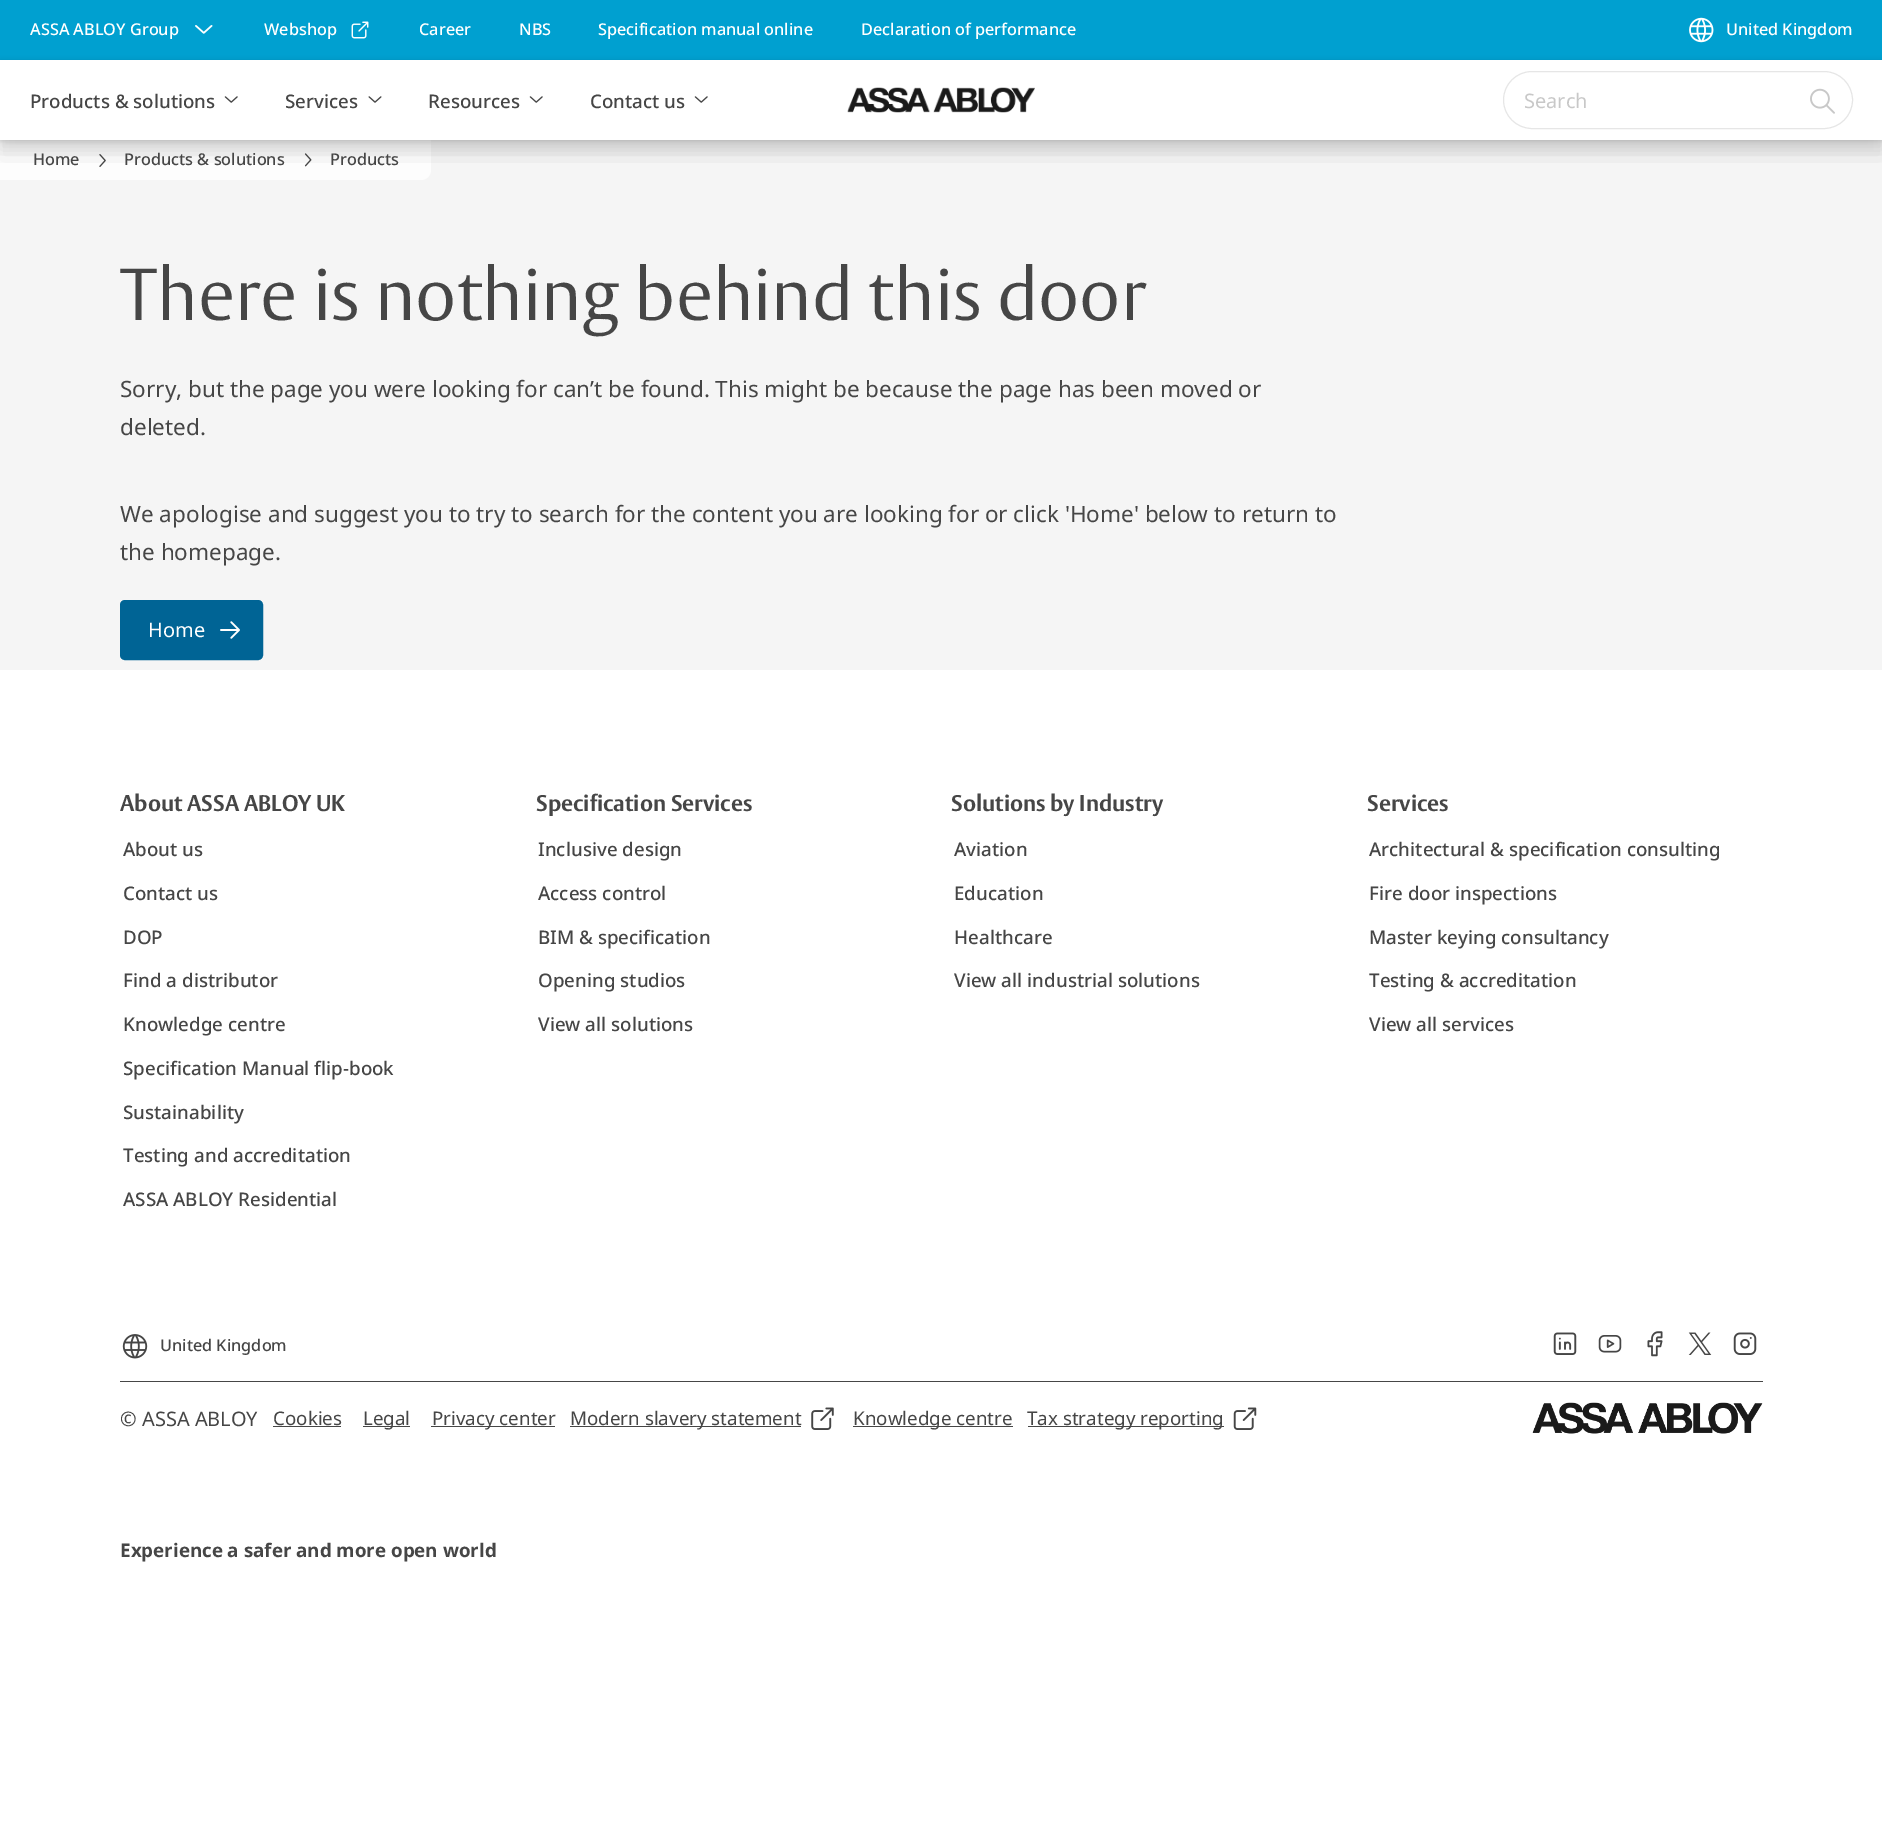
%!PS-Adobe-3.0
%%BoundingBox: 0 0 1882 1821
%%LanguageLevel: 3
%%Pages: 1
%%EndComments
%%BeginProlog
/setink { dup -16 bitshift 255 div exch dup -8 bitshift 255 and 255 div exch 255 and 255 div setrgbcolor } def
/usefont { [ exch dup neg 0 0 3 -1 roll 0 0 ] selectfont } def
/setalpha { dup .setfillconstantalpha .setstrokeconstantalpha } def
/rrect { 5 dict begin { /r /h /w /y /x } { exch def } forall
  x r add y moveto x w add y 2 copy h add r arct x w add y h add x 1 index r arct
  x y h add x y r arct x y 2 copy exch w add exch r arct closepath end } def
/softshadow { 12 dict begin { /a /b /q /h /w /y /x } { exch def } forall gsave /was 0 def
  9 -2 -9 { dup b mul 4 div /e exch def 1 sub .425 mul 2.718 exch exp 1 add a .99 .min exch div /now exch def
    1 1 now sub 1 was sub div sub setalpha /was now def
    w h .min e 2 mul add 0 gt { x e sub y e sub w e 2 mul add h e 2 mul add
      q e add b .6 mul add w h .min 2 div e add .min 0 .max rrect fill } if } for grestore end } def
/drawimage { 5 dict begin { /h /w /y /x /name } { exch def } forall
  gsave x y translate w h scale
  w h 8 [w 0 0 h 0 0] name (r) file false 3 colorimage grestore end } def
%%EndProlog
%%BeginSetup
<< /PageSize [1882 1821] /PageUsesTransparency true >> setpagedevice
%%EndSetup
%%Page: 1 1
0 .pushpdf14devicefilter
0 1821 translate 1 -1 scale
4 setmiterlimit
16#FFFFFF setink
0 0 1882 1821 rectfill
16#00A0D0 setink
0 0 1882 60 rectfill
/NotoSans-Medium 16.25 usefont
16#FFFFFF setink
30 35 moveto (ASSA ABLOY Group) show
(img1.raw) 195 25 18 9 drawimage
264 35 moveto (Webshop) show
(img2.raw) 351 21 18 18 drawimage
[
    [(Career) 419 35]
    [(NBS) 519 35]
    [(Specification manual online) 598 35]
    [(Declaration of performance) 861 35]
] { aload pop moveto show } forall
(img3.raw) 1689 17 25 26 drawimage
1726 35 moveto (United Kingdom) show
(img4.raw) 224 96 14 7 drawimage
(img5.raw) 368 96 14 7 drawimage
(img4.raw) 529 96 14 7 drawimage
(img4.raw) 694 96 14 7 drawimage
(img6.raw) 847 87 188 26 drawimage
16#E6E6E6 setink
1503.5 71.5 349 57 28.5 rrect stroke
(img7.raw) 1810 88 25 26 drawimage
16#F5F5F5 setink
0 140 1882 530 rectfill
16#FDFDFD setink
0 140 moveto 431 140 lineto 431 170 lineto 431 175.5 426.5 180 421 180 curveto 0 180 lineto closepath fill
gsave
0 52 moveto 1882 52 lineto 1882 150 lineto 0 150 lineto closepath 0 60 moveto 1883 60 lineto 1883 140 lineto 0 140 lineto closepath eoclip newpath
16#000000 setink
0 61 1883 80 0 2.5 0.15 softshadow
grestore
(img8.raw) 99 154 7 13 drawimage
(img9.raw) 304 153 8 14 drawimage
gsave
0 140 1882 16 rectclip
16#000000 setink
0 70 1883 80 0 7.5 0.1 softshadow
grestore
gsave
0 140 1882 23 rectclip
16#000000 setink
0 80 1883 80 0 12.5 0.05 softshadow
grestore
/NotoSans-Medium 18.75 usefont
16#464646 setink
[
    [(Products & solutions) 30 108]
    [(Services) 285 108]
    [(Resources) 428 108]
    [(Contact us) 590 108]
] { aload pop moveto show } forall
/NotoSans-Regular 20 usefont
16#C8C8C8 setink
1524 108 moveto (Search) show
/NotoSans-Medium 16.25 usefont
16#464646 setink
[
    [(Home) 33 165]
    [(Products & solutions) 124 165]
    [(Products) 330 165]
] { aload pop moveto show } forall
/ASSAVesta-Light 72.5 usefont
120 320 moveto (There is nothing behind this door) show
/NotoSans-Regular 22.5 usefont
[
    [(Sorry, but the page you were looking for can’t be found. This might be because the page has been moved or) 120 397]
    [(deleted.) 120 435]
    [(We apologise and suggest you to try to search for the content you are looking for or click 'Home' below to return to) 120 522]
    [(the homepage.) 120 560]
] { aload pop moveto show } forall
16#006495 setink
121.5 601.5 140 57 3.5 rrect gsave fill grestore
3 setlinewidth
stroke
/NotoSans-Regular 20 usefont
16#FFFFFF setink
148 637 moveto (Home) show
(img10.raw) 220 621 20 18 drawimage
/ASSAVesta-Bold 22.5 usefont
16#464646 setink
120 811 moveto (About ASSA ABLOY UK) show
/NotoSans-Medium 18.75 usefont
[
    [(About us) 123 856]
    [(Contact us) 123 900]
    [(DOP) 123 944]
    [(Find a distributor) 123 987]
    [(Knowledge centre) 123 1031]
    [(Specification Manual flip-book) 123 1075]
    [(Sustainability) 123 1119]
    [(Testing and accreditation) 123 1162]
    [(ASSA ABLOY Residential) 123 1206]
] { aload pop moveto show } forall
/ASSAVesta-Bold 22.5 usefont
536 811 moveto (Specification Services) show
/NotoSans-Medium 18.75 usefont
[
    [(Inclusive design) 538 856]
    [(Access control) 538 900]
    [(BIM & specification) 538 944]
    [(Opening studios) 538 987]
    [(View all solutions) 538 1031]
] { aload pop moveto show } forall
/ASSAVesta-Bold 22.5 usefont
951 811 moveto (Solutions by Industry) show
/NotoSans-Medium 18.75 usefont
[
    [(Aviation) 954 856]
    [(Education) 954 900]
    [(Healthcare) 954 944]
    [(View all industrial solutions) 954 987]
] { aload pop moveto show } forall
/ASSAVesta-Bold 22.5 usefont
1367 811 moveto (Services) show
/NotoSans-Medium 18.75 usefont
[
    [(Architectural & specification consulting) 1369 856]
    [(Fire door inspections) 1369 900]
    [(Master keying consultancy) 1369 944]
    [(Testing & accreditation) 1369 987]
    [(View all services) 1369 1031]
] { aload pop moveto show } forall
(img11.raw) 122 1334 26 25 drawimage
/NotoSans-Medium 16.25 usefont
160 1351 moveto (United Kingdom) show
(img12.raw) 1553 1332 24 23 drawimage
(img13.raw) 1598 1335 24 18 drawimage
(img14.raw) 1647 1331 16 26 drawimage
(img15.raw) 1688 1332 24 23 drawimage
(img16.raw) 1733 1332 24 23 drawimage
120 1381 1643 1 rectfill
/NotoSans-Regular 20 usefont
120 1426 moveto (© ASSA ABLOY) show
/NotoSans-Regular 18.75 usefont
273 1425 moveto (Cookies) show
273 1426 68 1 rectfill
363 1426 47 1 rectfill
363 1425 moveto (Legal) show
431 1426 124 1 rectfill
432 1425 moveto (Privacy center) show
570 1426 231 1 rectfill
570 1425 moveto (Modern slavery statement) show
(img17.raw) 811 1407 23 23 drawimage
853 1426 160 1 rectfill
853 1425 moveto (Knowledge centre) show
1028 1426 196 1 rectfill
1027 1425 moveto (Tax strategy reporting) show
(img18.raw) 1233 1407 24 23 drawimage
(img19.raw) 1532 1402 231 32 drawimage
/NotoSans-Bold 18.75 usefont
120 1557 moveto (Experience a safer and more open world) show
.poppdf14devicefilter showpage
%%EOF
